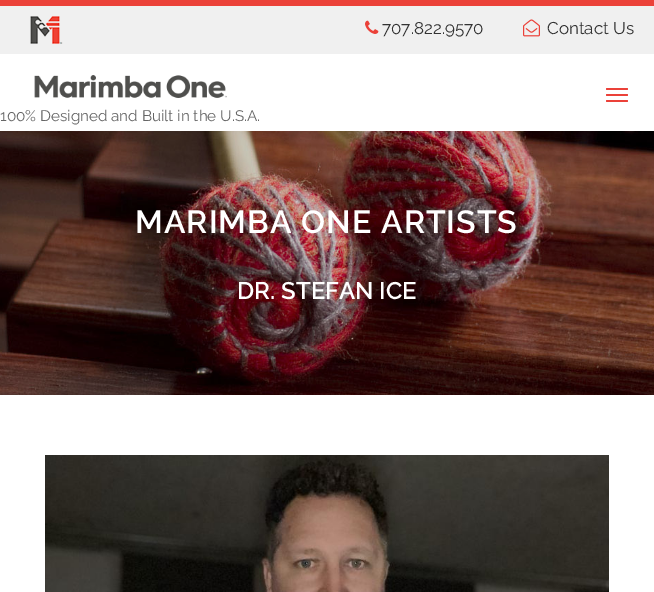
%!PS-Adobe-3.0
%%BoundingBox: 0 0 654 592
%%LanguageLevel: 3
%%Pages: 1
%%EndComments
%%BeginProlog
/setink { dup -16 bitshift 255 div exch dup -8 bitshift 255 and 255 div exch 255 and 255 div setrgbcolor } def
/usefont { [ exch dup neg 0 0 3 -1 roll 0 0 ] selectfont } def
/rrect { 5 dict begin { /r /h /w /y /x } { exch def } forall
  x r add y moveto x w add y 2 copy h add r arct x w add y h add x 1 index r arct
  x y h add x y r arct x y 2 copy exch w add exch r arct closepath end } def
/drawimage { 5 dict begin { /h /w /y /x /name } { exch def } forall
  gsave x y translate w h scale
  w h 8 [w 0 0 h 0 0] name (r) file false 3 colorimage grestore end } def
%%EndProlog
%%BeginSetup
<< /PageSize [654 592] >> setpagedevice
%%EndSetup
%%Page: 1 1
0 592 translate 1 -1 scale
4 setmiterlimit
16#FFFFFF setink
0 0 654 592 rectfill
16#F0F0F0 setink
0 6 654 48 rectfill
16#EB4139 setink
0 0 654 6 rectfill
(img1.raw) 30 16 33 28 drawimage
(img2.raw) 365 20 14 14 drawimage
/Raleway-Regular 17 usefont
16#333333 setink
382 34 moveto (707.822.9570) show
(img3.raw) 523 19 17 18 drawimage
547 34 moveto (Contact Us) show
16#EB4139 setink
606 88 22 2 1 rrect fill
606 94 22 2 1 rrect fill
606 100 22 2 1 rrect fill
(img4.raw) 34 75 193 23 drawimage
/Raleway-Regular 15.25 usefont
16#666666 setink
0 121 moveto (100% Designed and Built in the U.S.A.) show
(img5.raw) 0 131 654 264 drawimage
/Raleway-SemiBold 32 usefont
16#FFFFFF setink
135 233 moveto 1 0 (MARIMBA ONE ARTISTS) ashow
/Raleway-SemiBold 24 usefont
237 299 moveto (DR. STEFAN ICE) show
(img6.raw) 45 455 564 137 drawimage
showpage
%%EOF
